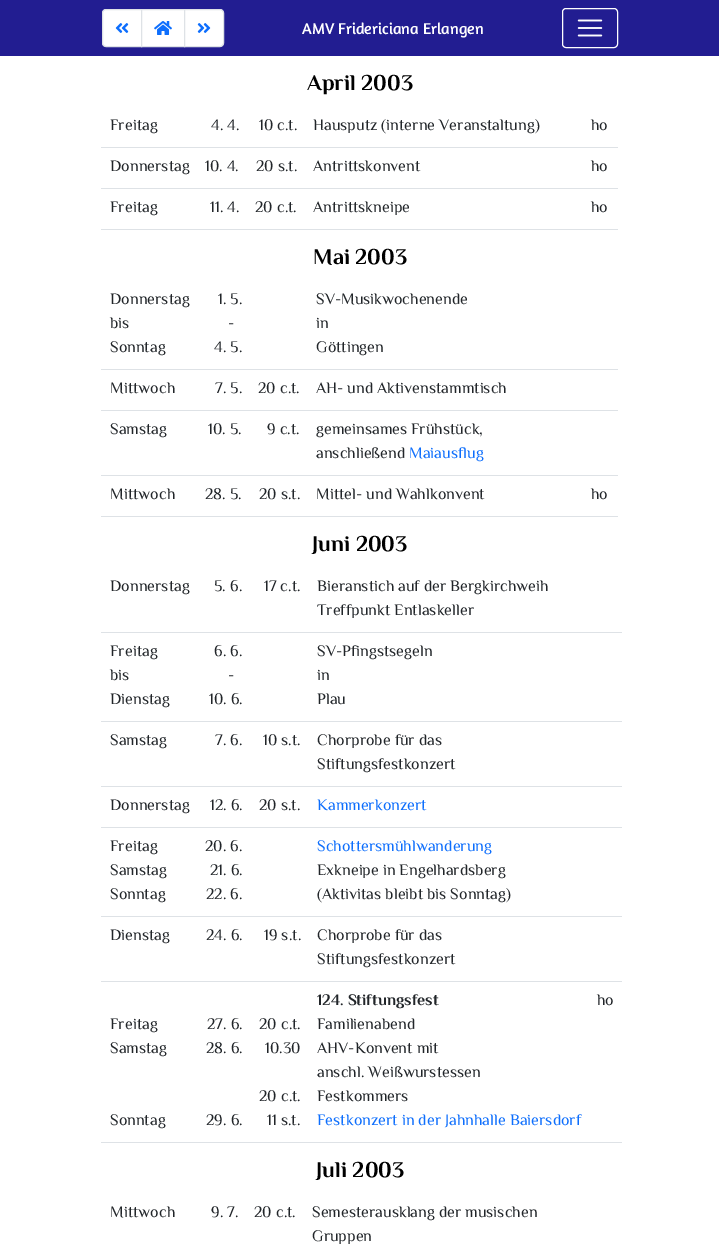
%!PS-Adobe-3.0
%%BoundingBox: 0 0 719 1244
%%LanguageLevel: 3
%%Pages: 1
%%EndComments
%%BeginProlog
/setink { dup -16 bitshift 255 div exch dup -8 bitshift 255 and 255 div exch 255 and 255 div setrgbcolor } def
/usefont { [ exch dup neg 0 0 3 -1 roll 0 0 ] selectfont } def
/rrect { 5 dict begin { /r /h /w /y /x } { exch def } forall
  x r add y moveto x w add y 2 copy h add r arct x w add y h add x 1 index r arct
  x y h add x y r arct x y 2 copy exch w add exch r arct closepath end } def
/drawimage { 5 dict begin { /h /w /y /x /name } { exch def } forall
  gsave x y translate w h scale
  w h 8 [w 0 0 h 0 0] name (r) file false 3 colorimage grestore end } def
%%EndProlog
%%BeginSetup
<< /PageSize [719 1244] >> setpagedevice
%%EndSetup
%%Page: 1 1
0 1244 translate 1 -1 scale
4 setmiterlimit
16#FFFFFF setink
0 0 719 1244 rectfill
16#221D91 setink
0 0 719 56 rectfill
16#FFFFFF setink
106 9.5 moveto 141.5 9.5 lineto 141.5 46.5 lineto 106 46.5 lineto 104 46.5 102.5 45 102.5 43 curveto 102.5 13 lineto 102.5 11 104 9.5 106 9.5 curveto closepath gsave fill grestore
16#DEE2E6 setink
stroke
(img1.raw) 115 23 14 10 drawimage
16#FFFFFF setink
141.5 9.5 moveto 184.5 9.5 lineto 184.5 46.5 lineto 141.5 46.5 lineto closepath gsave fill grestore
16#DEE2E6 setink
stroke
(img2.raw) 154 21 18 14 drawimage
16#FFFFFF setink
184.5 9.5 moveto 220 9.5 lineto 222 9.5 223.5 11 223.5 13 curveto 223.5 43 lineto 223.5 45 222 46.5 220 46.5 curveto 184.5 46.5 lineto closepath gsave fill grestore
16#DEE2E6 setink
stroke
(img3.raw) 197 23 14 10 drawimage
/Amaranth-Regular 16 usefont
16#FFFFFF setink
302 34 moveto (AMV Fridericiana Erlangen) show
562.5 8.5 55 39 3.5 rrect stroke
(img4.raw) 577 19 26 18 drawimage
/ElMessiri-Bold 22.5 usefont
16#000000 setink
307 90 moveto (April 2003) show
/ElMessiri-Regular 16 usefont
16#212529 setink
[
    [(Freitag) 110 130]
    [(4. 4.) 211 130]
    [(10 c.t.) 259 130]
    [(Hausputz \(interne Veranstaltung\)) 313 130]
] { aload pop moveto show } forall
16#DEE2E6 setink
101 147 517 1 rectfill
16#212529 setink
[
    [(ho) 591 130]
    [(Donnerstag) 110 171]
    [(10. 4.) 205 171]
    [(20 s.t.) 256 171]
    [(Antrittskonvent) 313 171]
] { aload pop moveto show } forall
16#DEE2E6 setink
101 188 517 1 rectfill
16#212529 setink
[
    [(ho) 591 171]
    [(Freitag) 110 212]
    [(11. 4.) 210 212]
    [(20 c.t.) 255 212]
    [(Antrittskneipe) 313 212]
] { aload pop moveto show } forall
16#DEE2E6 setink
101 229 517 1 rectfill
16#212529 setink
591 212 moveto (ho) show
/ElMessiri-Bold 22.5 usefont
16#000000 setink
313 264 moveto (Mai 2003) show
/ElMessiri-Regular 16 usefont
16#212529 setink
[
    [(Donnerstag) 110 304]
    [(bis) 110 328]
    [(Sonntag) 110 352]
    [(1. 5.) 218 304]
    [(-) 228 328]
    [(4. 5.) 214 352]
    [(SV-Musikwochenende) 316 304]
    [(in) 316 328]
    [(Göttingen) 316 352]
] { aload pop moveto show } forall
16#DEE2E6 setink
101 369 517 1 rectfill
16#212529 setink
[
    [(Mittwoch) 110 393]
    [(7. 5.) 215 393]
    [(20 c.t.) 258 393]
    [(AH- und Aktivenstammtisch) 316 393]
] { aload pop moveto show } forall
16#DEE2E6 setink
101 410 517 1 rectfill
16#212529 setink
[
    [(Samstag) 110 434]
    [(10. 5.) 208 434]
    [(9 c.t.) 267 434]
    [(gemeinsames Frühstück,) 316 434]
    [(anschließend) 316 458]
] { aload pop moveto show } forall
16#0D6EFD setink
409 458 moveto (Maiausflug) show
16#DEE2E6 setink
101 475 517 1 rectfill
16#212529 setink
[
    [(Mittwoch) 110 499]
    [(28. 5.) 205 499]
    [(20 s.t.) 259 499]
    [(Mittel- und Wahlkonvent) 316 499]
] { aload pop moveto show } forall
16#DEE2E6 setink
101 516 517 1 rectfill
16#212529 setink
591 499 moveto (ho) show
/ElMessiri-Bold 22.5 usefont
16#000000 setink
312 551 moveto (Juni 2003) show
/ElMessiri-Regular 16 usefont
16#212529 setink
[
    [(Donnerstag) 110 591]
    [(5. 6.) 214 591]
    [(17 c.t.) 264 591]
    [(Bieranstich auf der Bergkirchweih) 317 591]
    [(Treffpunkt Entlaskeller) 317 615]
] { aload pop moveto show } forall
16#DEE2E6 setink
101 632 521 1 rectfill
16#212529 setink
[
    [(Freitag) 110 656]
    [(bis) 110 680]
    [(Dienstag) 110 704]
    [(6. 6.) 214 656]
    [(-) 228 680]
    [(10. 6.) 209 704]
    [(SV-Pfingstsegeln) 317 656]
    [(in) 317 680]
    [(Plau) 317 704]
] { aload pop moveto show } forall
16#DEE2E6 setink
101 721 521 1 rectfill
16#212529 setink
[
    [(Samstag) 110 745]
    [(7. 6.) 215 745]
    [(10 s.t.) 263 745]
    [(Chorprobe für das) 317 745]
    [(Stiftungsfestkonzert) 317 769]
] { aload pop moveto show } forall
16#DEE2E6 setink
101 786 521 1 rectfill
16#212529 setink
[
    [(Donnerstag) 110 810]
    [(12. 6.) 210 810]
    [(20 s.t.) 259 810]
] { aload pop moveto show } forall
16#0D6EFD setink
317 810 moveto (Kammerkonzert) show
16#DEE2E6 setink
101 827 521 1 rectfill
16#212529 setink
[
    [(Freitag) 110 851]
    [(Samstag) 110 875]
    [(Sonntag) 110 899]
    [(20. 6.) 205 851]
    [(21. 6.) 210 875]
    [(22. 6.) 206 899]
] { aload pop moveto show } forall
16#0D6EFD setink
317 851 moveto (Schottersmühlwanderung) show
16#212529 setink
317 875 moveto (Exkneipe in Engelhardsberg) show
317 899 moveto (\(Aktivitas bleibt bis Sonntag\)) show
16#DEE2E6 setink
101 916 521 1 rectfill
16#212529 setink
[
    [(Dienstag) 110 940]
    [(24. 6.) 206 940]
    [(19 s.t.) 264 940]
    [(Chorprobe für das) 317 940]
    [(Stiftungsfestkonzert) 317 964]
] { aload pop moveto show } forall
16#DEE2E6 setink
101 981 521 1 rectfill
/ElMessiri-Bold 16 usefont
16#212529 setink
317 1005 moveto (124. Stiftungsfest) show
/ElMessiri-Regular 16 usefont
[
    [(Familienabend) 317 1029]
    [(AHV-Konvent mit) 317 1053]
    [(anschl. Weißwurstessen) 317 1077]
    [(Festkommers) 317 1101]
] { aload pop moveto show } forall
16#0D6EFD setink
317 1125 moveto (Festkonzert in der Jahnhalle Baiersdorf) show
16#DEE2E6 setink
101 1142 521 1 rectfill
16#212529 setink
[
    [(ho) 597 1005]
    [(Freitag) 110 1029]
    [(Samstag) 110 1053]
    [(Sonntag) 110 1125]
    [(27. 6.) 207 1029]
    [(28. 6.) 206 1053]
    [(29. 6.) 206 1125]
    [(20 c.t.) 259 1029]
    [(10.30) 265 1053]
    [(20 c.t.) 259 1101]
    [(11 s.t.) 267 1125]
] { aload pop moveto show } forall
/ElMessiri-Bold 22.5 usefont
16#000000 setink
316 1177 moveto (Juli 2003) show
/ElMessiri-Regular 16 usefont
16#212529 setink
[
    [(Mittwoch) 110 1217]
    [(9. 7.) 211 1217]
    [(20 c.t.) 254 1217]
    [(Semesterausklang der musischen) 312 1217]
    [(Gruppen) 312 1241]
] { aload pop moveto show } forall
showpage
%%EOF
